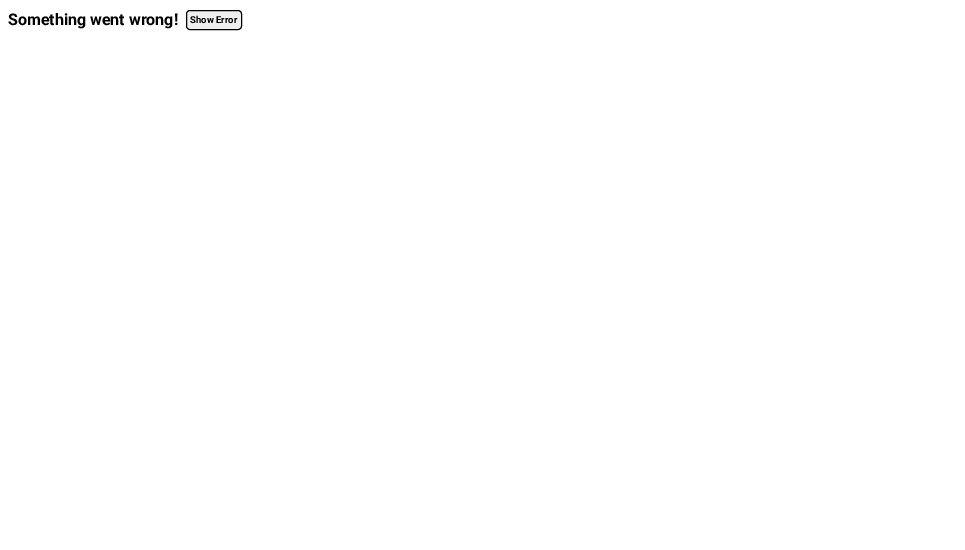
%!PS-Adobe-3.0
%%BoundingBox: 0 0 965 550
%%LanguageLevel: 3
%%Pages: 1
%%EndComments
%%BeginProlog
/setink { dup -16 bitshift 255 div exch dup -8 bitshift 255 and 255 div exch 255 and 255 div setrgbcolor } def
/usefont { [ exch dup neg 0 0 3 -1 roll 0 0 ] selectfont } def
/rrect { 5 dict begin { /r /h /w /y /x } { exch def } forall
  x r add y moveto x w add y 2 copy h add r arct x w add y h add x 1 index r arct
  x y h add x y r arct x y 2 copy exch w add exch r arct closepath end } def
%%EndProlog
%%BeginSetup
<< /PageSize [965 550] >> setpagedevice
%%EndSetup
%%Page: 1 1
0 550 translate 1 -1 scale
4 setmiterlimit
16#FFFFFF setink
0 0 965 550 rectfill
/Roboto-Bold 16 usefont
16#000000 setink
8 25 moveto (Something went wrong!) show
16#EFEFEF setink
186.5 10.5 55 19 3.5 rrect gsave fill grestore
16#000000 setink
stroke
/Roboto-Bold 9.5 usefont
190 23 moveto (Show Error) show
showpage
%%EOF
